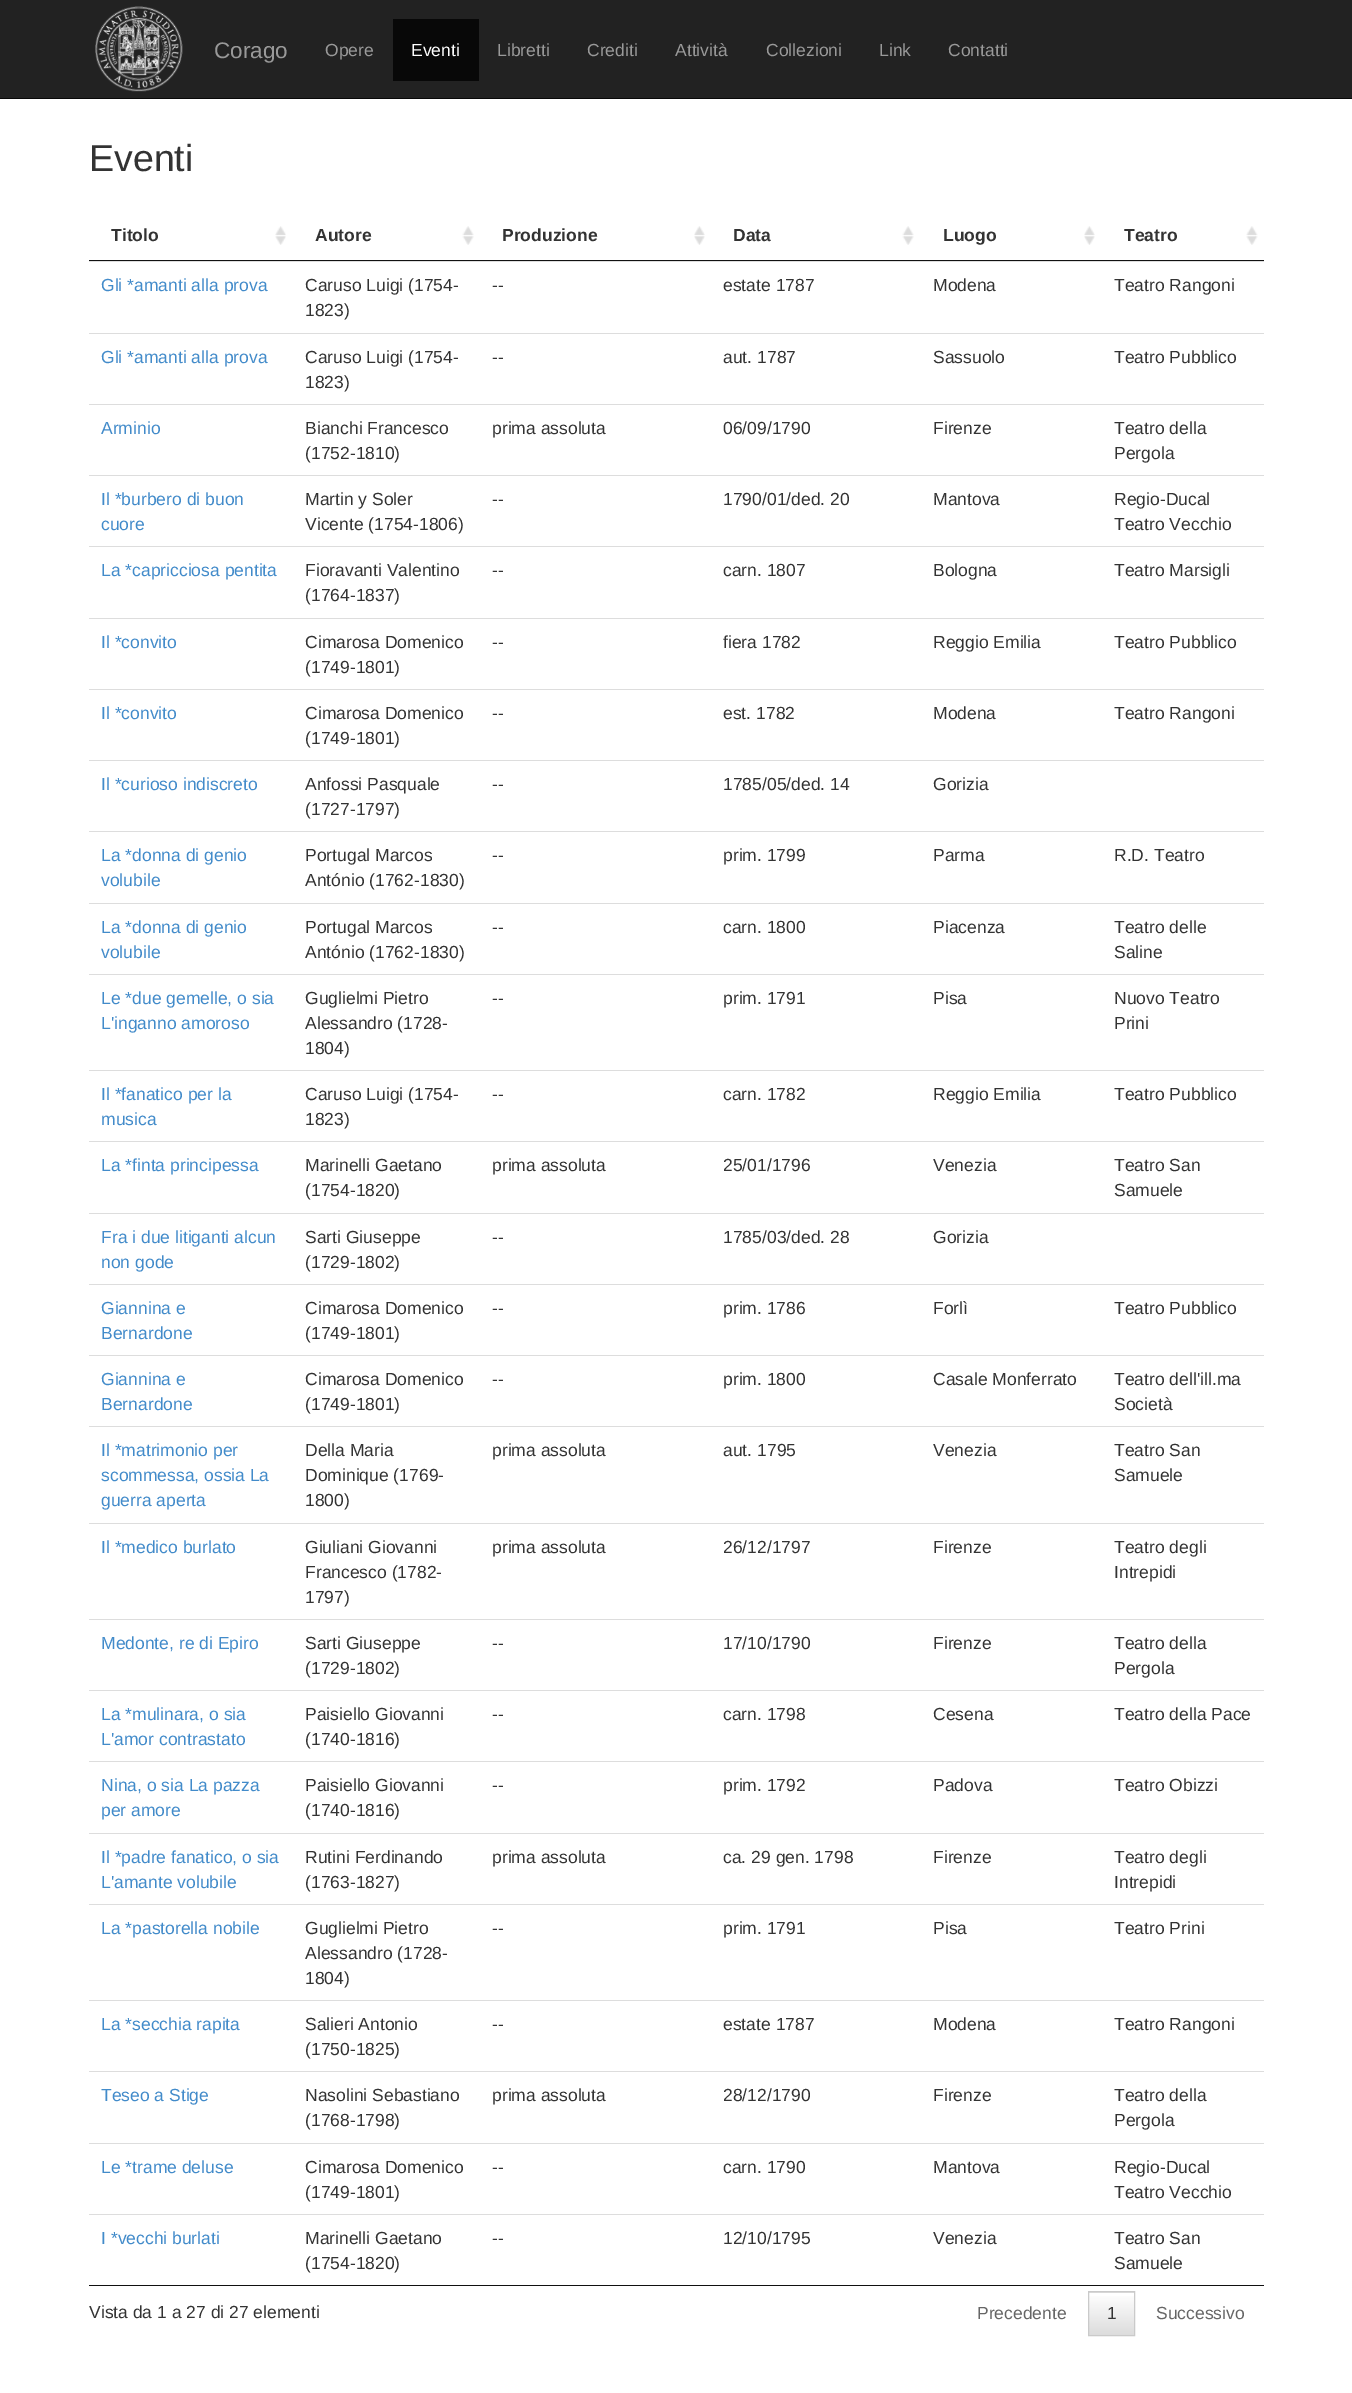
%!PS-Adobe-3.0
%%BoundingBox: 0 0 1352 2393
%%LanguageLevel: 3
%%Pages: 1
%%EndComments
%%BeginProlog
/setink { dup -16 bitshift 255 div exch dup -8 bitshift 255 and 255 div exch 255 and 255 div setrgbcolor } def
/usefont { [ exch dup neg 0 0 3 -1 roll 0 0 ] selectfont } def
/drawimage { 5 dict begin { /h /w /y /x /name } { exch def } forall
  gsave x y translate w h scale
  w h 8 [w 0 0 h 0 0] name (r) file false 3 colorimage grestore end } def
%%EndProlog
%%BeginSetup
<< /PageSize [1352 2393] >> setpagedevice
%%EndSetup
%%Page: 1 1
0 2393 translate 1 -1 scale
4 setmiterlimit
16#FFFFFF setink
0 0 1352 2393 rectfill
16#222222 setink
0 0 1352 98 rectfill
16#080808 setink
0 98 1352 1 rectfill
(img1.raw) 95 6 88 86 drawimage
/LiberationSans-Regular 22.5 usefont
16#999999 setink
214 58 moveto (Corago) show
/LiberationSans-Regular 17.5 usefont
325 56 moveto (Opere) show
16#080808 setink
393 19 86 62 rectfill
16#FFFFFF setink
411 56 moveto (Eventi) show
16#999999 setink
[
    [(Libretti) 497 56]
    [(Crediti) 587 56]
    [(Attività) 675 56]
    [(Collezioni) 766 56]
    [(Link) 879 56]
    [(Contatti) 948 56]
] { aload pop moveto show } forall
/LiberationSans-Regular 37.5 usefont
16#333333 setink
89 171 moveto (Eventi) show
16#111111 setink
89 2285 1175 1 rectfill
(img2.raw) 275 226 11 19 drawimage
89 260 1175 1 rectfill
/LiberationSans-Bold 17.5 usefont
16#333333 setink
111 241 moveto (Titolo) show
(img3.raw) 462 226 12 19 drawimage
315 241 moveto (Autore) show
(img4.raw) 694 226 11 19 drawimage
502 241 moveto (Produzione) show
(img3.raw) 902 226 12 19 drawimage
733 241 moveto (Data) show
(img5.raw) 1084 226 11 19 drawimage
943 241 moveto (Luogo) show
(img6.raw) 1246 226 12 19 drawimage
1124 241 moveto (Teatro) show
16#DDDDDD setink
89 261 1175 1 rectfill
/LiberationSans-Regular 17.5 usefont
16#428BCA setink
101 291 moveto (Gli *amanti alla prova) show
16#333333 setink
[
    [(Caruso Luigi \(1754-) 305 291]
    [(1823\)) 305 316]
    [(--) 492 291]
    [(estate 1787) 723 291]
    [(Modena) 933 291]
    [(Teatro Rangoni) 1114 291]
] { aload pop moveto show } forall
16#DDDDDD setink
89 333 1175 1 rectfill
16#428BCA setink
101 363 moveto (Gli *amanti alla prova) show
16#333333 setink
[
    [(Caruso Luigi \(1754-) 305 363]
    [(1823\)) 305 388]
    [(--) 492 363]
    [(aut. 1787) 723 363]
    [(Sassuolo) 933 363]
    [(Teatro Pubblico) 1114 363]
] { aload pop moveto show } forall
16#DDDDDD setink
89 404 1175 1 rectfill
16#428BCA setink
101 434 moveto (Arminio) show
16#333333 setink
[
    [(Bianchi Francesco) 305 434]
    [(\(1752-1810\)) 305 459]
    [(prima assoluta) 492 434]
    [(06/09/1790) 723 434]
    [(Firenze) 933 434]
    [(Teatro della) 1114 434]
    [(Pergola) 1114 459]
] { aload pop moveto show } forall
16#DDDDDD setink
89 475 1175 1 rectfill
16#428BCA setink
101 505 moveto (Il *burbero di buon) show
101 530 moveto (cuore) show
16#333333 setink
[
    [(Martin y Soler) 305 505]
    [(Vicente \(1754-1806\)) 305 530]
    [(--) 492 505]
    [(1790/01/ded. 20) 723 505]
    [(Mantova) 933 505]
    [(Regio-Ducal) 1114 505]
    [(Teatro Vecchio) 1114 530]
] { aload pop moveto show } forall
16#DDDDDD setink
89 546 1175 1 rectfill
16#428BCA setink
101 576 moveto (La *capricciosa pentita) show
16#333333 setink
[
    [(Fioravanti Valentino) 305 576]
    [(\(1764-1837\)) 305 601]
    [(--) 492 576]
    [(carn. 1807) 723 576]
    [(Bologna) 933 576]
    [(Teatro Marsigli) 1114 576]
] { aload pop moveto show } forall
16#DDDDDD setink
89 618 1175 1 rectfill
16#428BCA setink
101 648 moveto (Il *convito) show
16#333333 setink
[
    [(Cimarosa Domenico) 305 648]
    [(\(1749-1801\)) 305 673]
    [(--) 492 648]
    [(fiera 1782) 723 648]
    [(Reggio Emilia) 933 648]
    [(Teatro Pubblico) 1114 648]
] { aload pop moveto show } forall
16#DDDDDD setink
89 689 1175 1 rectfill
16#428BCA setink
101 719 moveto (Il *convito) show
16#333333 setink
[
    [(Cimarosa Domenico) 305 719]
    [(\(1749-1801\)) 305 744]
    [(--) 492 719]
    [(est. 1782) 723 719]
    [(Modena) 933 719]
    [(Teatro Rangoni) 1114 719]
] { aload pop moveto show } forall
16#DDDDDD setink
89 760 1175 1 rectfill
16#428BCA setink
101 790 moveto (Il *curioso indiscreto) show
16#333333 setink
[
    [(Anfossi Pasquale) 305 790]
    [(\(1727-1797\)) 305 815]
    [(--) 492 790]
    [(1785/05/ded. 14) 723 790]
    [(Gorizia) 933 790]
] { aload pop moveto show } forall
16#DDDDDD setink
89 831 1175 1 rectfill
16#428BCA setink
101 861 moveto (La *donna di genio) show
101 886 moveto (volubile) show
16#333333 setink
[
    [(Portugal Marcos) 305 861]
    [(António \(1762-1830\)) 305 886]
    [(--) 492 861]
    [(prim. 1799) 723 861]
    [(Parma) 933 861]
    [(R.D. Teatro) 1114 861]
] { aload pop moveto show } forall
16#DDDDDD setink
89 903 1175 1 rectfill
16#428BCA setink
101 933 moveto (La *donna di genio) show
101 958 moveto (volubile) show
16#333333 setink
[
    [(Portugal Marcos) 305 933]
    [(António \(1762-1830\)) 305 958]
    [(--) 492 933]
    [(carn. 1800) 723 933]
    [(Piacenza) 933 933]
    [(Teatro delle) 1114 933]
    [(Saline) 1114 958]
] { aload pop moveto show } forall
16#DDDDDD setink
89 974 1175 1 rectfill
16#428BCA setink
101 1004 moveto (Le *due gemelle, o sia) show
101 1029 moveto (L'inganno amoroso) show
16#333333 setink
[
    [(Guglielmi Pietro) 305 1004]
    [(Alessandro \(1728-) 305 1029]
    [(1804\)) 305 1054]
    [(--) 492 1004]
    [(prim. 1791) 723 1004]
    [(Pisa) 933 1004]
    [(Nuovo Teatro) 1114 1004]
    [(Prini) 1114 1029]
] { aload pop moveto show } forall
16#DDDDDD setink
89 1070 1175 1 rectfill
16#428BCA setink
101 1100 moveto (Il *fanatico per la) show
101 1125 moveto (musica) show
16#333333 setink
[
    [(Caruso Luigi \(1754-) 305 1100]
    [(1823\)) 305 1125]
    [(--) 492 1100]
    [(carn. 1782) 723 1100]
    [(Reggio Emilia) 933 1100]
    [(Teatro Pubblico) 1114 1100]
] { aload pop moveto show } forall
16#DDDDDD setink
89 1141 1175 1 rectfill
16#428BCA setink
101 1171 moveto (La *finta principessa) show
16#333333 setink
[
    [(Marinelli Gaetano) 305 1171]
    [(\(1754-1820\)) 305 1196]
    [(prima assoluta) 492 1171]
    [(25/01/1796) 723 1171]
    [(Venezia) 933 1171]
    [(Teatro San) 1114 1171]
    [(Samuele) 1114 1196]
] { aload pop moveto show } forall
16#DDDDDD setink
89 1213 1175 1 rectfill
16#428BCA setink
101 1243 moveto (Fra i due litiganti alcun) show
101 1268 moveto (non gode) show
16#333333 setink
[
    [(Sarti Giuseppe) 305 1243]
    [(\(1729-1802\)) 305 1268]
    [(--) 492 1243]
    [(1785/03/ded. 28) 723 1243]
    [(Gorizia) 933 1243]
] { aload pop moveto show } forall
16#DDDDDD setink
89 1284 1175 1 rectfill
16#428BCA setink
101 1314 moveto (Giannina e) show
101 1339 moveto (Bernardone) show
16#333333 setink
[
    [(Cimarosa Domenico) 305 1314]
    [(\(1749-1801\)) 305 1339]
    [(--) 492 1314]
    [(prim. 1786) 723 1314]
    [(Forlì) 933 1314]
    [(Teatro Pubblico) 1114 1314]
] { aload pop moveto show } forall
16#DDDDDD setink
89 1355 1175 1 rectfill
16#428BCA setink
101 1385 moveto (Giannina e) show
101 1410 moveto (Bernardone) show
16#333333 setink
[
    [(Cimarosa Domenico) 305 1385]
    [(\(1749-1801\)) 305 1410]
    [(--) 492 1385]
    [(prim. 1800) 723 1385]
    [(Casale Monferrato) 933 1385]
    [(Teatro dell'ill.ma) 1114 1385]
    [(Società) 1114 1410]
] { aload pop moveto show } forall
16#DDDDDD setink
89 1426 1175 1 rectfill
16#428BCA setink
[
    [(Il *matrimonio per) 101 1456]
    [(scommessa, ossia La) 101 1481]
    [(guerra aperta) 101 1506]
] { aload pop moveto show } forall
16#333333 setink
[
    [(Della Maria) 305 1456]
    [(Dominique \(1769-) 305 1481]
    [(1800\)) 305 1506]
    [(prima assoluta) 492 1456]
    [(aut. 1795) 723 1456]
    [(Venezia) 933 1456]
    [(Teatro San) 1114 1456]
    [(Samuele) 1114 1481]
] { aload pop moveto show } forall
16#DDDDDD setink
89 1523 1175 1 rectfill
16#428BCA setink
101 1553 moveto (Il *medico burlato) show
16#333333 setink
[
    [(Giuliani Giovanni) 305 1553]
    [(Francesco \(1782-) 305 1578]
    [(1797\)) 305 1603]
    [(prima assoluta) 492 1553]
    [(26/12/1797) 723 1553]
    [(Firenze) 933 1553]
    [(Teatro degli) 1114 1553]
    [(Intrepidi) 1114 1578]
] { aload pop moveto show } forall
16#DDDDDD setink
89 1619 1175 1 rectfill
16#428BCA setink
101 1649 moveto (Medonte, re di Epiro) show
16#333333 setink
[
    [(Sarti Giuseppe) 305 1649]
    [(\(1729-1802\)) 305 1674]
    [(--) 492 1649]
    [(17/10/1790) 723 1649]
    [(Firenze) 933 1649]
    [(Teatro della) 1114 1649]
    [(Pergola) 1114 1674]
] { aload pop moveto show } forall
16#DDDDDD setink
89 1690 1175 1 rectfill
16#428BCA setink
101 1720 moveto (La *mulinara, o sia) show
101 1745 moveto (L'amor contrastato) show
16#333333 setink
[
    [(Paisiello Giovanni) 305 1720]
    [(\(1740-1816\)) 305 1745]
    [(--) 492 1720]
    [(carn. 1798) 723 1720]
    [(Cesena) 933 1720]
    [(Teatro della Pace) 1114 1720]
] { aload pop moveto show } forall
16#DDDDDD setink
89 1761 1175 1 rectfill
16#428BCA setink
101 1791 moveto (Nina, o sia La pazza) show
101 1816 moveto (per amore) show
16#333333 setink
[
    [(Paisiello Giovanni) 305 1791]
    [(\(1740-1816\)) 305 1816]
    [(--) 492 1791]
    [(prim. 1792) 723 1791]
    [(Padova) 933 1791]
    [(Teatro Obizzi) 1114 1791]
] { aload pop moveto show } forall
16#DDDDDD setink
89 1833 1175 1 rectfill
16#428BCA setink
101 1863 moveto (Il *padre fanatico, o sia) show
101 1888 moveto (L'amante volubile) show
16#333333 setink
[
    [(Rutini Ferdinando) 305 1863]
    [(\(1763-1827\)) 305 1888]
    [(prima assoluta) 492 1863]
    [(ca. 29 gen. 1798) 723 1863]
    [(Firenze) 933 1863]
    [(Teatro degli) 1114 1863]
    [(Intrepidi) 1114 1888]
] { aload pop moveto show } forall
16#DDDDDD setink
89 1904 1175 1 rectfill
16#428BCA setink
101 1934 moveto (La *pastorella nobile) show
16#333333 setink
[
    [(Guglielmi Pietro) 305 1934]
    [(Alessandro \(1728-) 305 1959]
    [(1804\)) 305 1984]
    [(--) 492 1934]
    [(prim. 1791) 723 1934]
    [(Pisa) 933 1934]
    [(Teatro Prini) 1114 1934]
] { aload pop moveto show } forall
16#DDDDDD setink
89 2000 1175 1 rectfill
16#428BCA setink
101 2030 moveto (La *secchia rapita) show
16#333333 setink
[
    [(Salieri Antonio) 305 2030]
    [(\(1750-1825\)) 305 2055]
    [(--) 492 2030]
    [(estate 1787) 723 2030]
    [(Modena) 933 2030]
    [(Teatro Rangoni) 1114 2030]
] { aload pop moveto show } forall
16#DDDDDD setink
89 2071 1175 1 rectfill
16#428BCA setink
101 2101 moveto (Teseo a Stige) show
16#333333 setink
[
    [(Nasolini Sebastiano) 305 2101]
    [(\(1768-1798\)) 305 2126]
    [(prima assoluta) 492 2101]
    [(28/12/1790) 723 2101]
    [(Firenze) 933 2101]
    [(Teatro della) 1114 2101]
    [(Pergola) 1114 2126]
] { aload pop moveto show } forall
16#DDDDDD setink
89 2143 1175 1 rectfill
16#428BCA setink
101 2173 moveto (Le *trame deluse) show
16#333333 setink
[
    [(Cimarosa Domenico) 305 2173]
    [(\(1749-1801\)) 305 2198]
    [(--) 492 2173]
    [(carn. 1790) 723 2173]
    [(Mantova) 933 2173]
    [(Regio-Ducal) 1114 2173]
    [(Teatro Vecchio) 1114 2198]
] { aload pop moveto show } forall
16#DDDDDD setink
89 2214 1175 1 rectfill
16#428BCA setink
101 2244 moveto (I *vecchi burlati) show
16#333333 setink
[
    [(Marinelli Gaetano) 305 2244]
    [(\(1754-1820\)) 305 2269]
    [(--) 492 2244]
    [(12/10/1795) 723 2244]
    [(Venezia) 933 2244]
    [(Teatro San) 1114 2244]
    [(Samuele) 1114 2269]
    [(Vista da 1 a 27 di 27 elementi) 89 2318]
] { aload pop moveto show } forall
16#666666 setink
977 2319 moveto (Precedente) show
gsave 1088 2292 moveto 1135 2292 lineto 1135 2293 lineto 1088 2293 lineto closepath clip newpath
<< /ShadingType 2 /ColorSpace /DeviceRGB /Coords [1111 2250 1111 2293] /Extend [true true] /Function << /FunctionType 2 /Domain [0 1] /C0 [1 1 1] /C1 [0.863 0.863 0.863] /N 1 >> >> shfill grestore
gsave 1089 2296 moveto 1134 2296 lineto 1134 2335 lineto 1089 2335 lineto closepath clip newpath
<< /ShadingType 2 /ColorSpace /DeviceRGB /Coords [1111 2293 1111 2335] /Extend [true true] /Function << /FunctionType 2 /Domain [0 1] /C0 [1 1 1] /C1 [0.863 0.863 0.863] /N 1 >> >> shfill grestore
16#CACACA setink
1088.5 2291.5 46 44 rectstroke
16#333333 setink
1107 2319 moveto (1) show
16#666666 setink
1156 2319 moveto (Successivo) show
showpage
%%EOF
